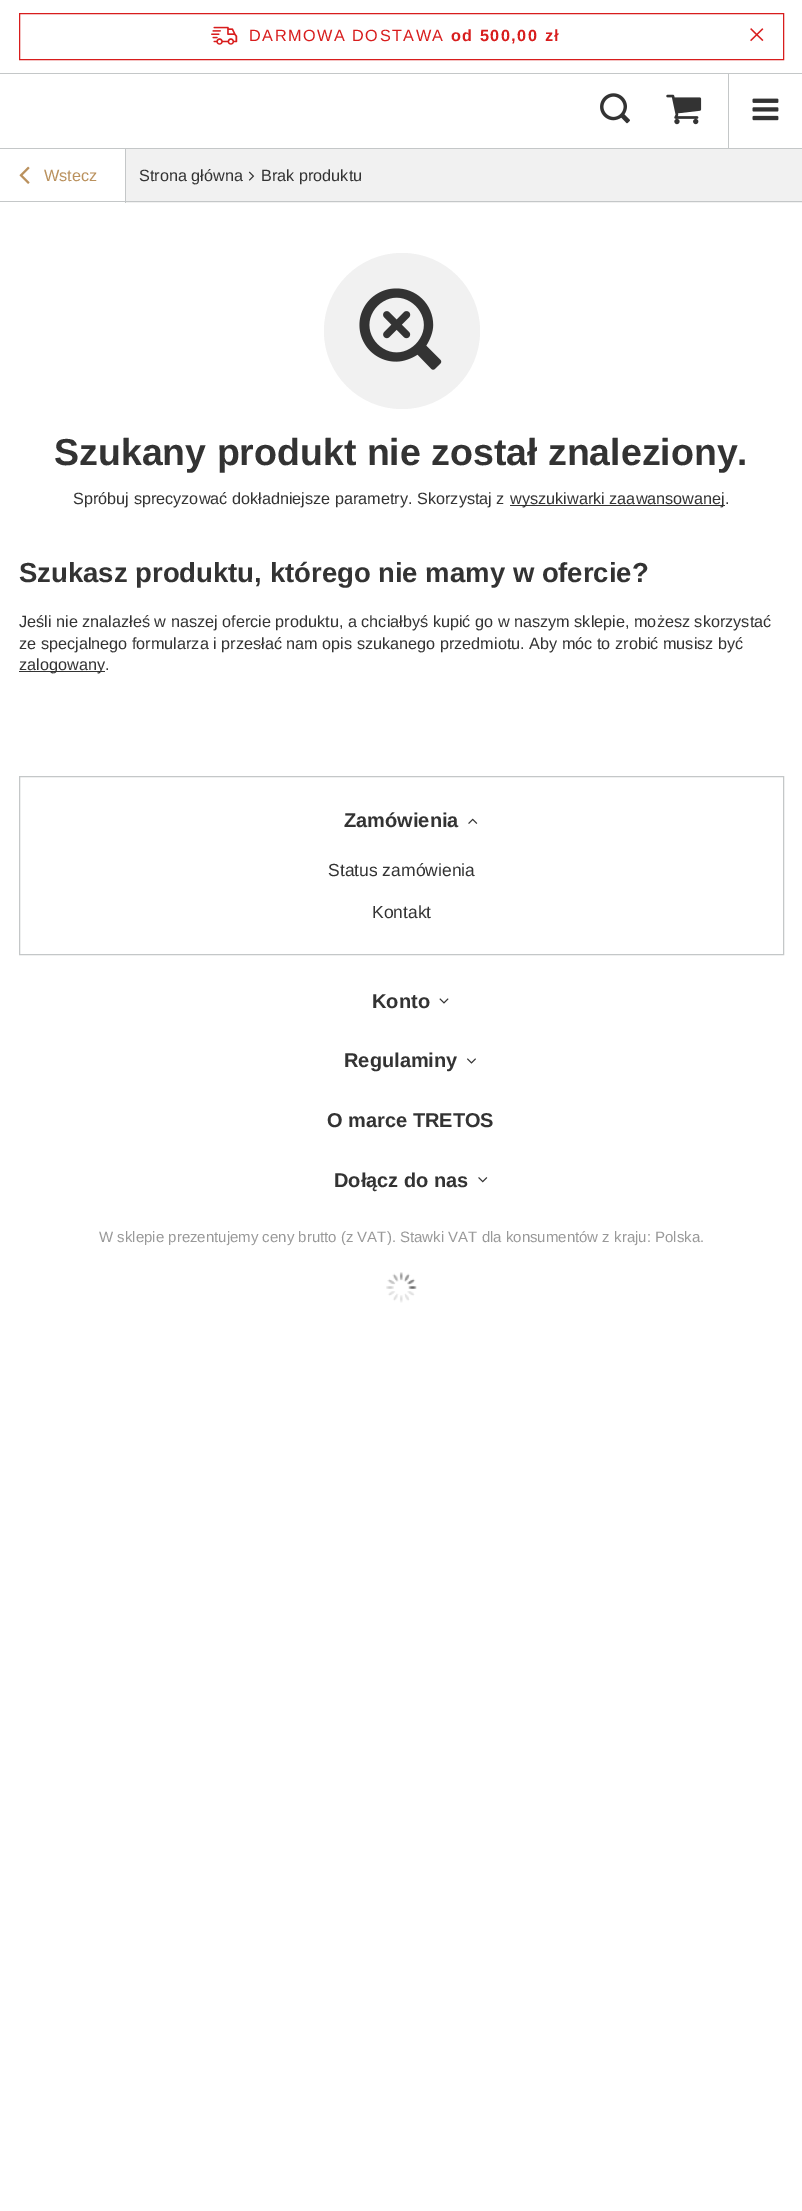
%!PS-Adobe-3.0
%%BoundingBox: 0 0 802 2211
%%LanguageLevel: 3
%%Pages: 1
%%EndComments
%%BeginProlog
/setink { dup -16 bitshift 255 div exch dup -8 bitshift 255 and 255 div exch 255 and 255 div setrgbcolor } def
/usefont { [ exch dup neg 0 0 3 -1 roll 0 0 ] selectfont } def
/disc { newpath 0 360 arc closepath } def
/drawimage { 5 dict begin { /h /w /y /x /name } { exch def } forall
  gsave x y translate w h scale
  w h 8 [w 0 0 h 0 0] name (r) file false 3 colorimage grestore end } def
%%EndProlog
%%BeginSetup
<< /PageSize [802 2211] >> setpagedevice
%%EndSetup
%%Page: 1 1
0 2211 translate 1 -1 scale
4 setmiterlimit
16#FFFFFF setink
0 0 802 2211 rectfill
16#C4C7C8 setink
0 148 802 1 rectfill
16#D81D1D setink
19.5 13.5 764 46 rectstroke
(img1.raw) 211 26 27 19 drawimage
/LiberationSans-Regular 16.25 usefont
249 41 moveto 1.5 0 (DARMOWA DOSTAWA) ashow
/LiberationSans-Bold 16.25 usefont
451 41 moveto 1.5 0 (od 500,00 zł) ashow
(img2.raw) 750 28 14 14 drawimage
16#C4C7C8 setink
728 73 1 75 rectfill
0 73 802 1 rectfill
(img3.raw) 600 93 30 31 drawimage
(img4.raw) 666 94 36 31 drawimage
(img5.raw) 752 98 27 23 drawimage
(img6.raw) 19 166 11 18 drawimage
/LiberationSans-Regular 16.25 usefont
16#BA915D setink
44 181 moveto (Wstecz) show
16#F1F1F1 setink
126 149 676 54 rectfill
16#C4C7C8 setink
125 149 1 54 rectfill
16#333333 setink
139 181 moveto (Strona główna) show
(img7.raw) 248 171 7 10 drawimage
261 181 moveto (Brak produktu) show
16#C4C7C8 setink
0 201 802 1 rectfill
16#F1F1F1 setink
402 331 78 disc fill
(img8.raw) 359 288 83 82 drawimage
/LiberationSans-Bold 37.5 usefont
16#333333 setink
54 465 moveto (Szukany produkt nie został znaleziony.) show
/LiberationSans-Regular 16.25 usefont
73 504 moveto (Spróbuj sprecyzować dokładniejsze parametry. Skorzystaj z) show
510 505 215 1 rectfill
510 504 moveto (wyszukiwarki zaawansowanej.) show
/LiberationSans-Bold 27.5 usefont
19 582 moveto (Szukasz produktu, którego nie mamy w ofercie?) show
/LiberationSans-Regular 16.25 usefont
19 627 moveto (Jeśli nie znalazłeś w naszej ofercie produktu, a chciałbyś kupić go w naszym sklepie, możesz skorzystać) show
19 649 moveto (ze specjalnego formularza i przesłać nam opis szukanego przedmiotu. Aby móc to zrobić musisz być) show
19 671 86 1 rectfill
19 670 moveto (zalogowany.) show
16#C4C7C8 setink
19.5 776.5 764 178 rectstroke
/LiberationSans-Bold 20 usefont
16#333333 setink
344 827 moveto (Zamówienia) show
(img9.raw) 468 818 10 6 drawimage
/LiberationSans-Regular 17.5 usefont
328 876 moveto (Status zamówienia) show
372 918 moveto (Kontakt) show
/LiberationSans-Bold 20 usefont
372 1008 moveto (Konto) show
(img10.raw) 439 998 10 6 drawimage
344 1067 moveto (Regulaminy) show
(img11.raw) 467 1058 9 6 drawimage
327 1127 moveto (O marce TRETOS) show
334 1187 moveto (Dołącz do nas) show
(img12.raw) 478 1177 10 6 drawimage
/LiberationSans-Regular 15 usefont
16#999999 setink
99 1242 moveto (W sklepie prezentujemy ceny brutto \(z VAT\). Stawki VAT dla konsumentów z kraju: Polska.) show
(img13.raw) 386 1272 31 31 drawimage
showpage
%%EOF
